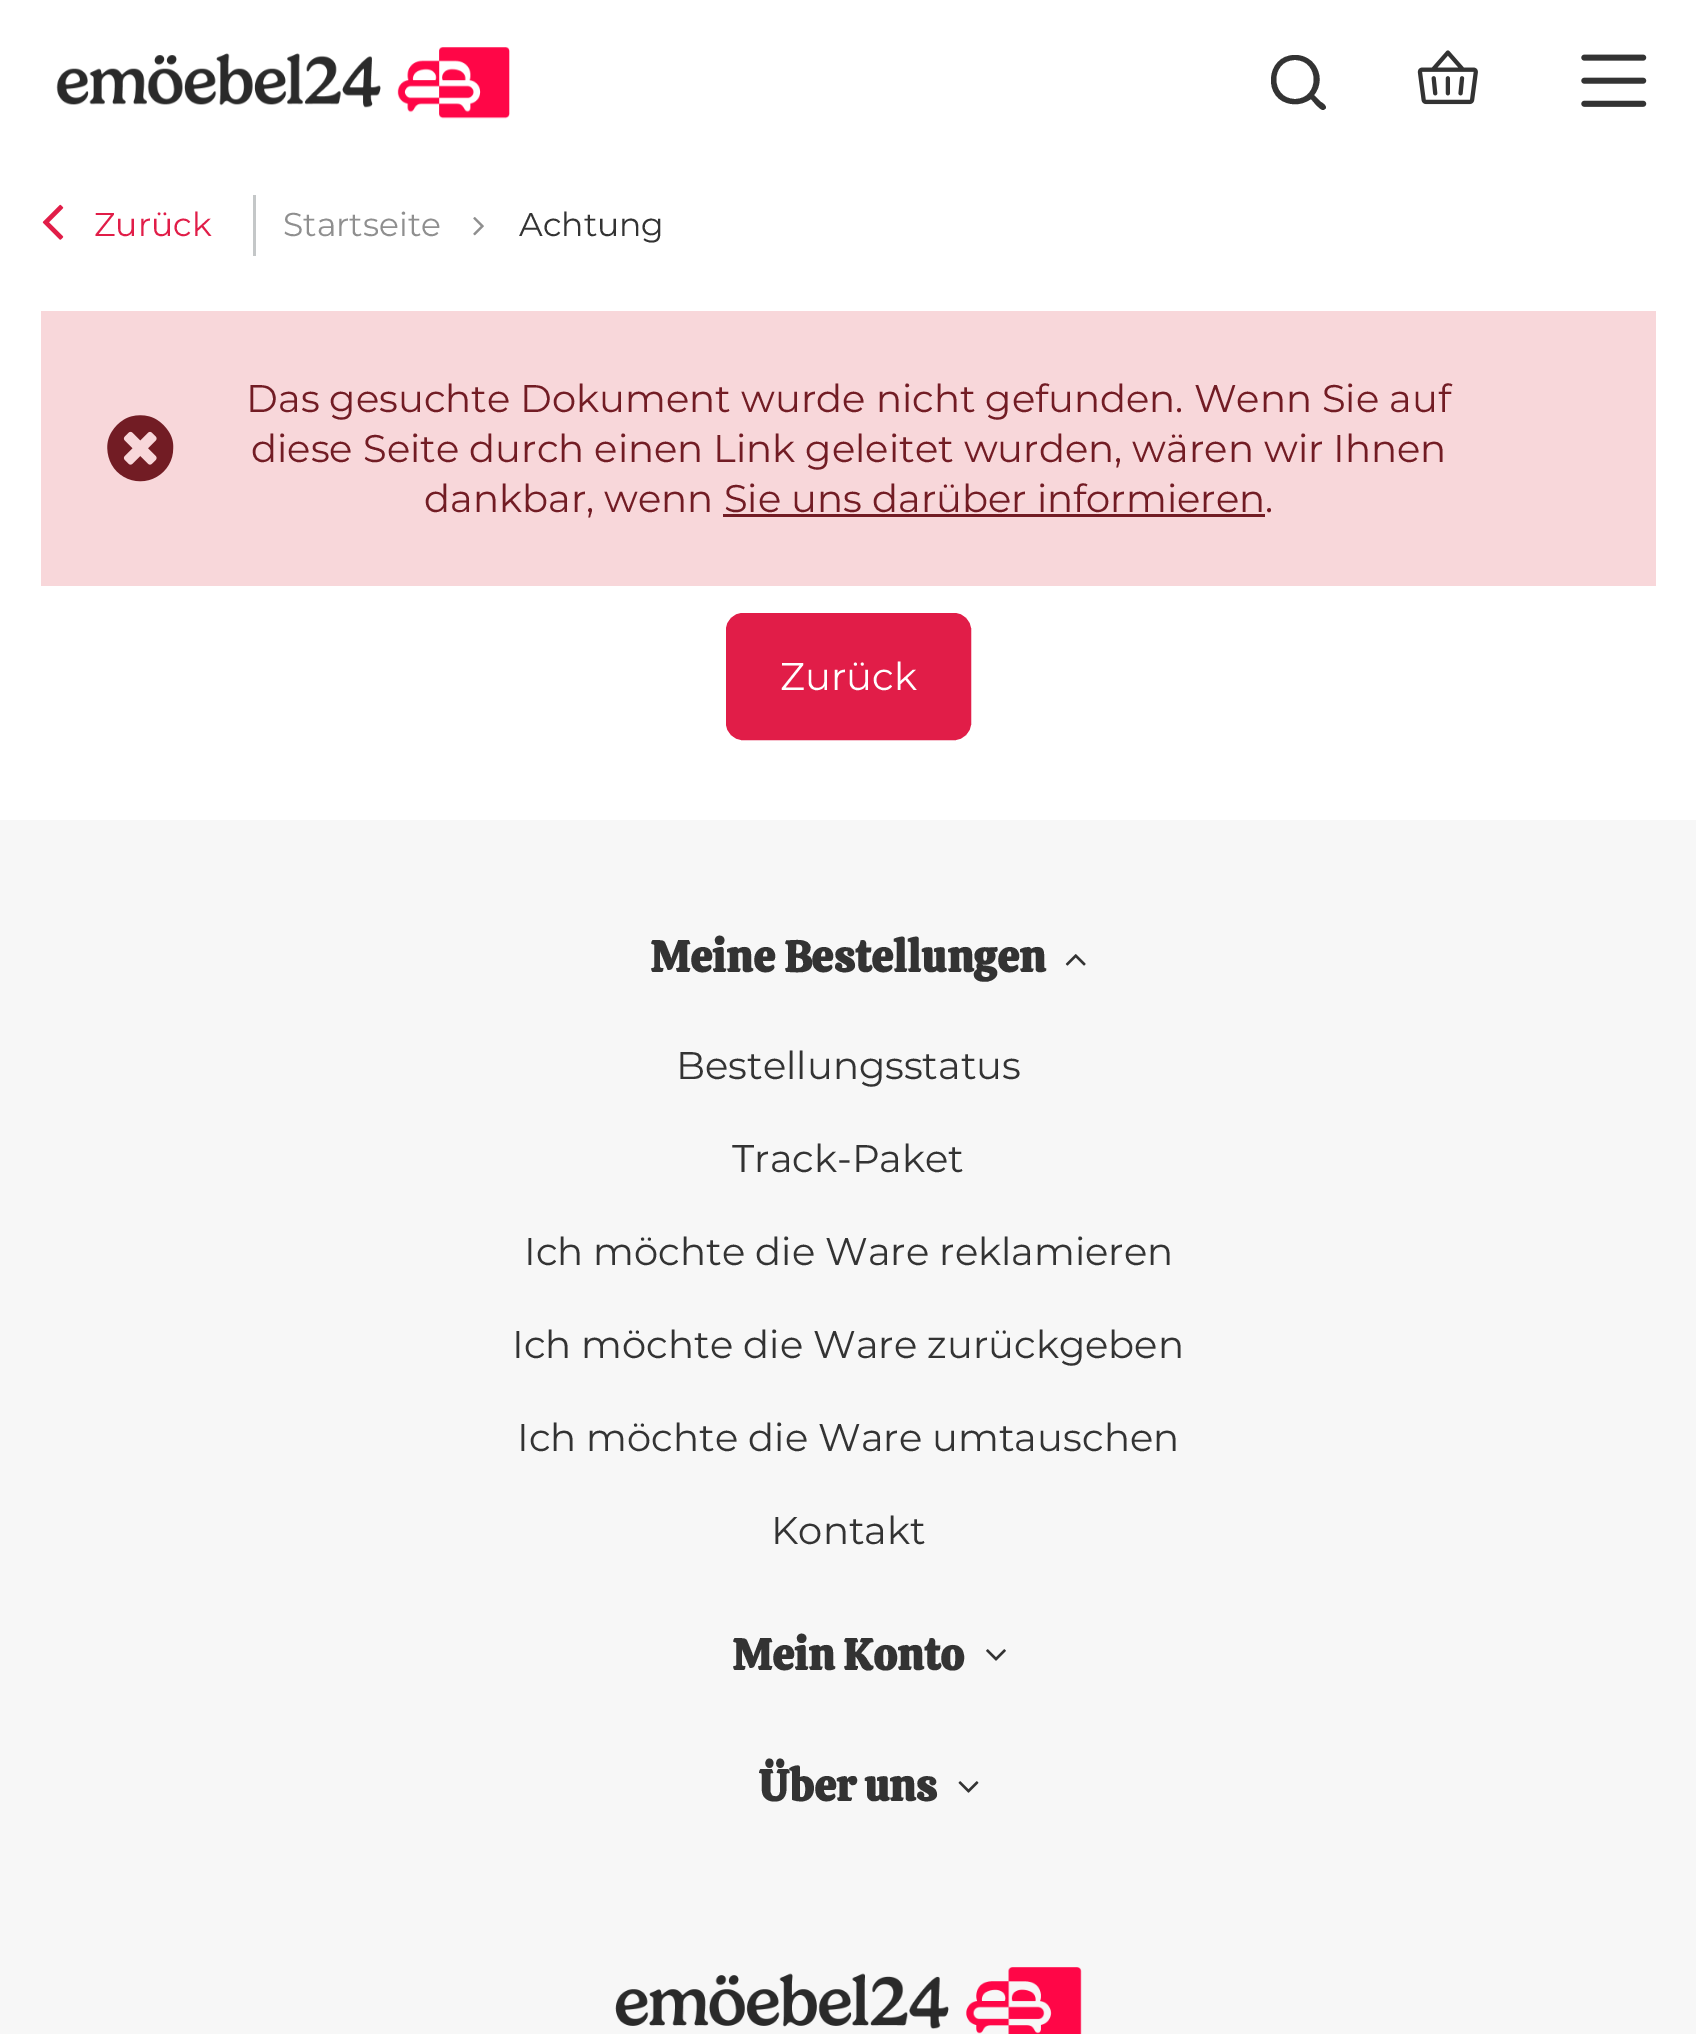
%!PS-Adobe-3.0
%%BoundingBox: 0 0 1696 2034
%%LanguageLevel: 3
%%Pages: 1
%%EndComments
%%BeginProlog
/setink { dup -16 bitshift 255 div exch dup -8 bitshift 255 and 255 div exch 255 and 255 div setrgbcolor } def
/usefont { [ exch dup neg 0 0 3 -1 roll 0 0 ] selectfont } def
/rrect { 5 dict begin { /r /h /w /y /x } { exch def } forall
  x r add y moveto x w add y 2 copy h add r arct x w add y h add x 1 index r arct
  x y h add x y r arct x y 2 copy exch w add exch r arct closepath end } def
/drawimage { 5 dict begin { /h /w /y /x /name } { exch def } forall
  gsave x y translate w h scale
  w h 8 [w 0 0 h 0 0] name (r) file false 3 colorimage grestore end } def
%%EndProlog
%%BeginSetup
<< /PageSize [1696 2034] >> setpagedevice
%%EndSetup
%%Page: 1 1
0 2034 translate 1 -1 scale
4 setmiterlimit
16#FFFFFF setink
0 0 1696 2034 rectfill
(img1.raw) 56 47 454 72 drawimage
16#333333 setink
1295 55 moveto 1265 55 1262 101 1292 104 curveto 1299 105 1305 103 1311 99 curveto 1317 106 lineto 1319 107 1322 112 1325 109 curveto 1328 107 1323 103 1321 102 curveto 1314 95 lineto 1327 79 1316 55 1295 55 curveto closepath 1295 60 moveto 1320 60 1320 99 1295 99 curveto 1270 99 1270 60 1295 60 curveto closepath fill
(img2.raw) 1417 50 61 55 drawimage
(img3.raw) 1581 54 66 53 drawimage
(img4.raw) 42 204 22 36 drawimage
/Montserrat-Regular 33 usefont
16#E11D48 setink
94 236 moveto (Zurück) show
16#C4C7C8 setink
253 195 3 61 rectfill
16#8F8F8F setink
283 236 moveto (Startseite) show
(img5.raw) 473 217 11 19 drawimage
16#333333 setink
519 236 moveto (Achtung) show
16#F8D7DA setink
41 311 1615 275 rectfill
(img6.raw) 107 415 67 67 drawimage
/Montserrat-Regular 38.5 usefont
16#721C24 setink
[
    [(Das gesuchte Dokument wurde nicht gefunden. Wenn Sie auf) 246 412]
    [(diese Seite durch einen Link geleitet wurden, wären wir Ihnen) 251 462]
    [(dankbar, wenn Sie uns darüber informieren.) 424 512]
] { aload pop moveto show } forall
723 514 542 3 rectfill
16#E11D48 setink
727.5 614.5 242 124 15.5 rrect gsave fill grestore
3 setlinewidth
stroke
16#FFFFFF setink
780 690 moveto (Zurück) show
16#F7F7F7 setink
0 820 1696 1214 rectfill
/Calistoga-Bold 44 usefont
16#333333 setink
650 972 moveto (Meine Bestellungen) show
(img7.raw) 1065 954 21 12 drawimage
/Montserrat-Regular 38.5 usefont
[
    [(Bestellungsstatus) 676 1079]
    [(Track-Paket) 732 1172]
    [(Ich möchte die Ware reklamieren) 524 1265]
    [(Ich möchte die Ware zurückgeben) 512 1358]
    [(Ich möchte die Ware umtauschen) 517 1451]
    [(Kontakt) 771 1544]
] { aload pop moveto show } forall
/Calistoga-Bold 44 usefont
732 1670 moveto (Mein Konto) show
(img8.raw) 986 1649 20 12 drawimage
759 1801 moveto (Über uns) show
(img9.raw) 958 1781 21 12 drawimage
(img10.raw) 615 1967 467 67 drawimage
showpage
%%EOF
